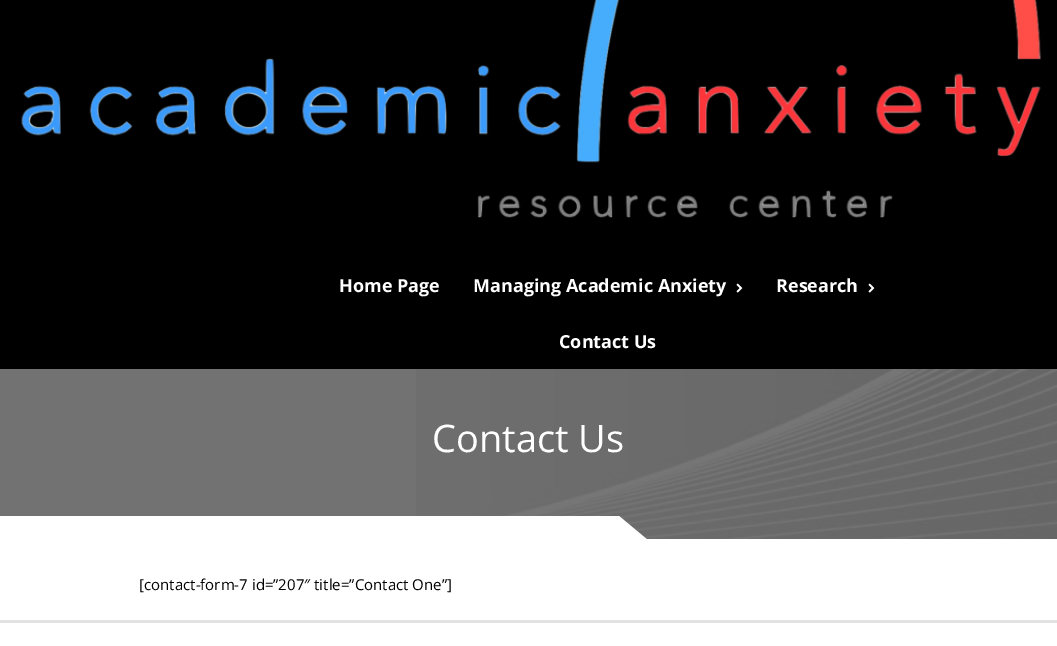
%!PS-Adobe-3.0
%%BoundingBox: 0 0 1057 646
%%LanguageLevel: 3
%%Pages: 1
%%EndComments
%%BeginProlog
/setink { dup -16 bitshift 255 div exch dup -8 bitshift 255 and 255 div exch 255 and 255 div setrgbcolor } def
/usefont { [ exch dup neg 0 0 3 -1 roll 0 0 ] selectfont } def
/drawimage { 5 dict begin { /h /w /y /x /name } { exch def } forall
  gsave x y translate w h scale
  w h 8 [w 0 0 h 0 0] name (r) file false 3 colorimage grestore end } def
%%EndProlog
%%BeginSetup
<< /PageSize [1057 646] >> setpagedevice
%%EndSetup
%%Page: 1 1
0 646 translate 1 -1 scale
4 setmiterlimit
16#FFFFFF setink
0 0 1057 646 rectfill
16#000000 setink
0 0 1057 369 rectfill
(img1.raw) 21 0 1020 218 drawimage
/OpenSans-Bold 18 usefont
16#FFFFFF setink
339 292 moveto (Home Page) show
473 292 moveto (Managing Academic Anxiety) show
(img2.raw) 736 283 7 10 drawimage
776 292 moveto (Research) show
(img2.raw) 868 283 7 10 drawimage
559 348 moveto (Contact Us) show
16#727272 setink
0 369 1057 170 rectfill
(img3.raw) 416 369 641 170 drawimage
/OpenSans-Regular 38 usefont
16#FFFFFF setink
432 452 moveto (Contact Us) show
-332 516 moveto 619 516 lineto 649 541 lineto -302 541 lineto closepath fill
/OpenSans-Regular 15 usefont
16#000000 setink
139 590 moveto ([contact-form-7 id=”207″ title=”Contact One”]) show
16#E2E2E2 setink
0 620 1057 3 rectfill
showpage
%%EOF
